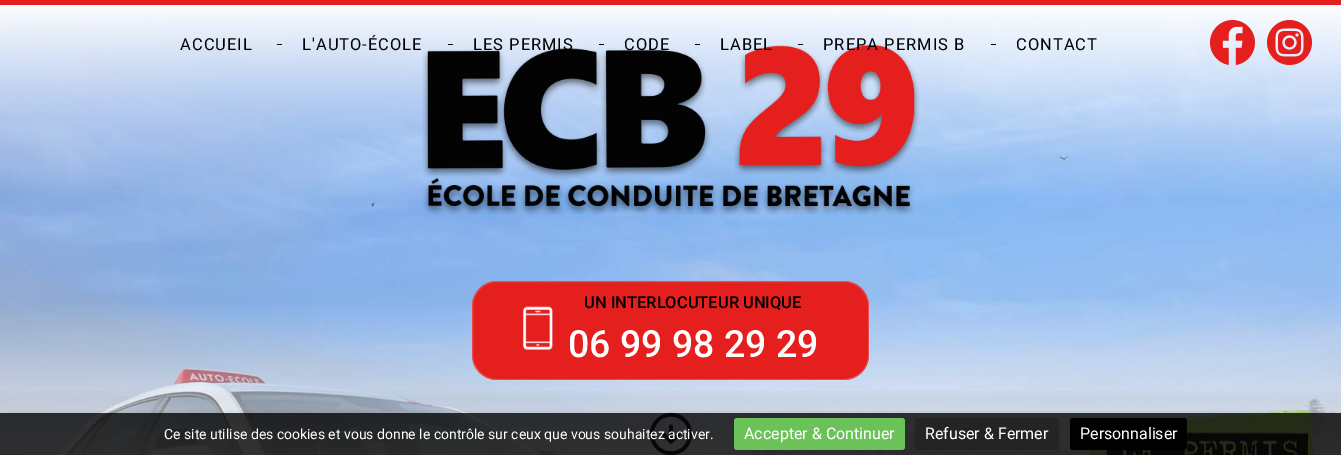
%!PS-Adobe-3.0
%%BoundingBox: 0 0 1341 455
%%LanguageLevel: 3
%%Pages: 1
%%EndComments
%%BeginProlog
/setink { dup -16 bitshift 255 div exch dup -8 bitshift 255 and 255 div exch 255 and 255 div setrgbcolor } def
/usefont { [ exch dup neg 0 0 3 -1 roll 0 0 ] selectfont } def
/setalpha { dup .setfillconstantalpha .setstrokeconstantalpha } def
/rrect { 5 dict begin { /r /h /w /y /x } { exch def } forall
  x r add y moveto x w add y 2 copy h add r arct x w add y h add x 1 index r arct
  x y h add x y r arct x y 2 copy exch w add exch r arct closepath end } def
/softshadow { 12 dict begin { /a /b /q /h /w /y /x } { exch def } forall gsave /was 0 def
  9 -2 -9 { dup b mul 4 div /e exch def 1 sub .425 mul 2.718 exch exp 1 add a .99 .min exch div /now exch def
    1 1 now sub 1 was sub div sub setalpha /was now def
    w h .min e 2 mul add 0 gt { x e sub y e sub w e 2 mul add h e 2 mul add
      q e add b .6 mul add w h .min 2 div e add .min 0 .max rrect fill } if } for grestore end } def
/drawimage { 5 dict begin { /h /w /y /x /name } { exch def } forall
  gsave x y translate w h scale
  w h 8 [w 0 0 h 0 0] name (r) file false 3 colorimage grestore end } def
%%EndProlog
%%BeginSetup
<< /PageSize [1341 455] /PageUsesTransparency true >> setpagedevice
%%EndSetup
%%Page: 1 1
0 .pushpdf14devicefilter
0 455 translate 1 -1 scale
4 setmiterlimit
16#FFFFFF setink
0 0 1341 455 rectfill
16#E51E1E setink
0 0 1341 5 rectfill
(img3.raw) 0 5 1341 450 drawimage
/Roboto-Regular 16.5 usefont
16#000000 setink
180 50 moveto 1 0 (ACCUEIL) ashow
277 44 5 1 rectfill
302 50 moveto 1 0 (L'AUTO-ÉCOLE) ashow
(img4.raw) 422 44 498 171 drawimage
448 44 5 1 rectfill
473 50 moveto 1 0 (LES PERMIS) ashow
599 44 5 1 rectfill
624 50 moveto 1 0 (CODE) ashow
695 44 5 1 rectfill
720 50 moveto 1 0 (LABEL) ashow
798 44 5 1 rectfill
823 50 moveto 1 0 (PREPA PERMIS B) ashow
991 44 5 1 rectfill
1016 50 moveto 1 0 (CONTACT) ashow
(img1.raw) 1210 20 45 45 drawimage
(img2.raw) 1267 20 45 45 drawimage
16#E51E1E setink
472 281 397 99 25 rrect fill
0.2 setalpha
16#FFFFFF setink
472.5 281.5 396 98 24.5 rrect stroke
1 setalpha
(img5.raw) 523 306 30 44 drawimage
/Roboto-Medium 16.5 usefont
16#000000 setink
584 308 moveto (UN INTERLOCUTEUR UNIQUE) show
/Roboto-Medium 37.5 usefont
16#FFFFFF setink
568 357 moveto (06 99 98 29 29) show
(img6.raw) 1088 409 227 46 drawimage
(img7.raw) 649 412 44 43 drawimage
gsave
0 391 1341 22 rectclip
16#000000 setink
0 433 1341 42 0 30 0.25 softshadow
grestore
0.8 setalpha
16#000000 setink
0 413 1341 42 rectfill
/Roboto-Regular 14 usefont
1 setalpha
16#FFFFFF setink
164 439 moveto (Ce site utilise des cookies et vous donne le contrôle sur ceux que vous souhaitez activer.) show
16#6BC259 setink
734 418 171 32 3 rrect fill
/Roboto-Regular 16 usefont
16#FFFFFF setink
744 439 moveto (Accepter & Continuer) show
16#242424 setink
915 418 144 32 3 rrect fill
16#FFFFFF setink
925 439 moveto (Refuser & Fermer) show
16#000000 setink
1070 418 117 32 3 rrect fill
16#FFFFFF setink
1080 439 moveto (Personnaliser) show
.poppdf14devicefilter showpage
%%EOF
